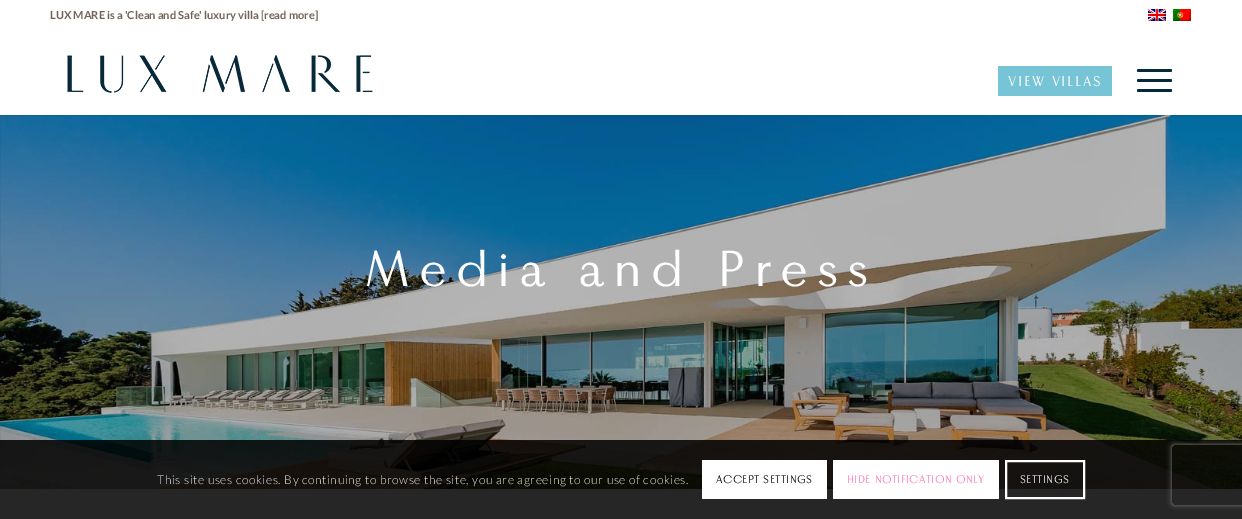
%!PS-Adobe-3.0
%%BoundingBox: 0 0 1242 519
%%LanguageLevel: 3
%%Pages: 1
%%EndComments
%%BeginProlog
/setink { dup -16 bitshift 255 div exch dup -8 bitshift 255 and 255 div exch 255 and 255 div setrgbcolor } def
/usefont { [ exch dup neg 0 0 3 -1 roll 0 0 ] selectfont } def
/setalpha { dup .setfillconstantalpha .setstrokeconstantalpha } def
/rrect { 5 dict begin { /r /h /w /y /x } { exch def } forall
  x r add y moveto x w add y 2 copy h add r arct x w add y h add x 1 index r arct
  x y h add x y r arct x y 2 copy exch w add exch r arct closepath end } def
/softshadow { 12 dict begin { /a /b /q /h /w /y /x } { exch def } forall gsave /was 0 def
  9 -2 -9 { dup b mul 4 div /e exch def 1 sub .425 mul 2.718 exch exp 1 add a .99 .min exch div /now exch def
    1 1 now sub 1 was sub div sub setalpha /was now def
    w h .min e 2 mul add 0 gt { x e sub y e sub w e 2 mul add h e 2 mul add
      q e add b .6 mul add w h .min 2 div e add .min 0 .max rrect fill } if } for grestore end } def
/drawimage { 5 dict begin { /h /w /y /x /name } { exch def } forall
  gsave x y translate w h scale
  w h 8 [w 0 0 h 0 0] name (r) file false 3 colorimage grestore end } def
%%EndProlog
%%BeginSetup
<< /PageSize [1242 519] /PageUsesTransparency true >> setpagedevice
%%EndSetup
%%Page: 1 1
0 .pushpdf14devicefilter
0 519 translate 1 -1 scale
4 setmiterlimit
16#FFFFFF setink
0 0 1242 519 rectfill
(img4.raw) 0 115 1242 374 drawimage
16#000000 setink
-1 -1 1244 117 0 1 0.1 softshadow
16#FFFFFF setink
0 0 1242 115 rectfill
/Lato-Bold 11 usefont
16#706259 setink
50 19 moveto (LUX MARE is a 'Clean and Safe' luxury villa [read more]) show
(img1.raw) 1148 9 18 12 drawimage
(img2.raw) 1173 9 18 12 drawimage
(img3.raw) 67 55 306 38 drawimage
16#76C4D5 setink
998 66 114 30 rectfill
/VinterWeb-Bold 14 usefont
16#FFFFFF setink
1008 86 moveto 2 0 (VIEW VILLAS) ashow
16#022A3A setink
1137 79 35 3 1.5 rrect fill
1137 69 35 3 1.5 rrect fill
1137 89 35 3 1.5 rrect fill
/VinterWeb-Bold 50 usefont
16#FFFFFF setink
364 286 moveto 10 0 (Media and Press) ashow
0.85 setalpha
16#000000 setink
0 440 1242 79 rectfill
/Lato-Light 12 usefont
1 setalpha
16#E7E7E6 setink
157 484 moveto 0.6 0 (This site uses cookies. By continuing to browse the site, you are agreeing to our use of cookies.) ashow
16#FFFFFF setink
702 460 125 39 rectfill
/VinterWeb-Bold 11 usefont
16#000000 setink
716 483 moveto 0.55 0 (ACCEPT SETTINGS) ashow
16#FFFFFF setink
833 460 166 39 rectfill
16#FF75B5 setink
847 483 moveto 0.55 0 (HIDE NOTIFICATION ONLY) ashow
16#FFFFFF setink
2 setlinewidth
1006 461 78 37 rectstroke
1020 483 moveto 0.55 0 (SETTINGS) ashow
gsave
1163 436 moveto 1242 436 lineto 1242 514 lineto 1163 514 lineto closepath 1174 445 moveto 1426 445 lineto 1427 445 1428 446 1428 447 curveto 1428 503 lineto 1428 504 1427 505 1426 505 curveto 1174 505 lineto 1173 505 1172 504 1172 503 curveto 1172 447 lineto 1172 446 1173 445 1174 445 curveto closepath eoclip newpath
16#808080 setink
1172 445 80 60 2 2.5 1 softshadow
grestore
.poppdf14devicefilter showpage
%%EOF
